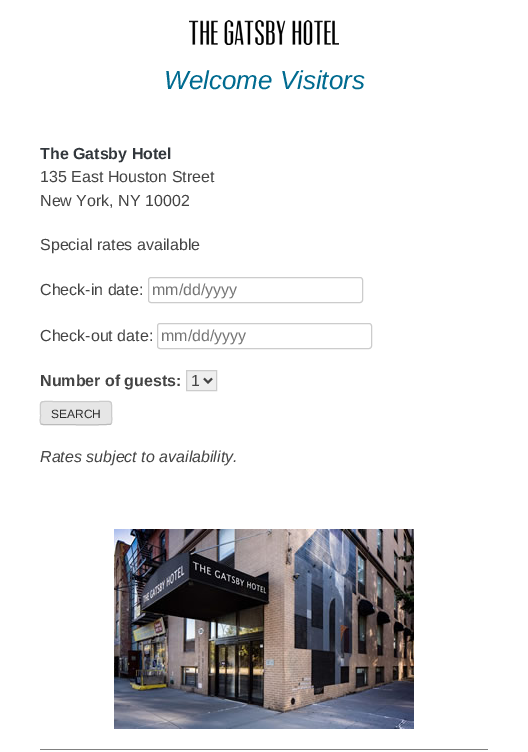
%!PS-Adobe-3.0
%%BoundingBox: 0 0 528 752
%%LanguageLevel: 3
%%Pages: 1
%%EndComments
%%BeginProlog
/setink { dup -16 bitshift 255 div exch dup -8 bitshift 255 and 255 div exch 255 and 255 div setrgbcolor } def
/usefont { [ exch dup neg 0 0 3 -1 roll 0 0 ] selectfont } def
/rrect { 5 dict begin { /r /h /w /y /x } { exch def } forall
  x r add y moveto x w add y 2 copy h add r arct x w add y h add x 1 index r arct
  x y h add x y r arct x y 2 copy exch w add exch r arct closepath end } def
/drawimage { 5 dict begin { /h /w /y /x /name } { exch def } forall
  gsave x y translate w h scale
  w h 8 [w 0 0 h 0 0] name (r) file false 3 colorimage grestore end } def
%%EndProlog
%%BeginSetup
<< /PageSize [528 752] >> setpagedevice
%%EndSetup
%%Page: 1 1
0 752 translate 1 -1 scale
4 setmiterlimit
16#FFFFFF setink
0 0 528 752 rectfill
(img1.raw) 189 20 150 25 drawimage
/LiberationSans-Italic 26 usefont
16#006B90 setink
164 89 moveto (Welcome Visitors) show
/LiberationSans-Bold 16 usefont
16#32373C setink
40 159 moveto (The Gatsby Hotel) show
/LiberationSans-Regular 16 usefont
16#444444 setink
[
    [(135 East Houston Street) 40 182]
    [(New York, NY 10002) 40 206]
    [(Special rates available) 40 250]
    [(Check-in date:) 40 295]
] { aload pop moveto show } forall
16#CCCCCC setink
148.5 277.5 214 25 2.5 rrect stroke
16#757575 setink
152 295 moveto (mm/dd/yyyy) show
16#444444 setink
40 341 moveto (Check-out date:) show
16#CCCCCC setink
157.5 323.5 214 25 2.5 rrect stroke
16#757575 setink
161 341 moveto (mm/dd/yyyy) show
/LiberationSans-Bold 16 usefont
16#444444 setink
40 386 moveto (Number of guests:) show
16#EFEFEF setink
186.5 370.5 moveto 216.5 370.5 lineto 216.5 390.5 lineto 186.5 390.5 lineto closepath gsave fill grestore
16#CCCCCC setink
stroke
16#444444 setink
2 setlinewidth
204 378.5 moveto 208 382.5 lineto 212 378.5 lineto stroke
/LiberationSans-Regular 16 usefont
191 386 moveto (1) show
16#E6E6E6 setink
40 401 72 24 3 rrect fill
16#BBBBBB setink
1 setlinewidth
111 424 moveto 110.5 424 lineto 108.5 425.5 60.5 424.5 54 424.5 curveto 43 424.5 lineto 41 424 lineto stroke
16#CCCCCC setink
41 424 moveto 39.5 422 40.5 418 40.5 416 curveto 40.5 399.5 37.5 401.5 54 401.5 curveto 98 401.5 lineto 113.5 401.5 111.5 399 111.5 413 curveto 111.5 415 112.5 422 111 424 curveto stroke
/LiberationSans-Regular 12 usefont
16#2E2E2E setink
51 418 moveto (SEARCH) show
/LiberationSans-Italic 16 usefont
16#444444 setink
40 462 moveto (Rates subject to availability.) show
(img2.raw) 114 529 300 200 drawimage
16#808080 setink
40 749 448 1 rectfill
showpage
%%EOF
